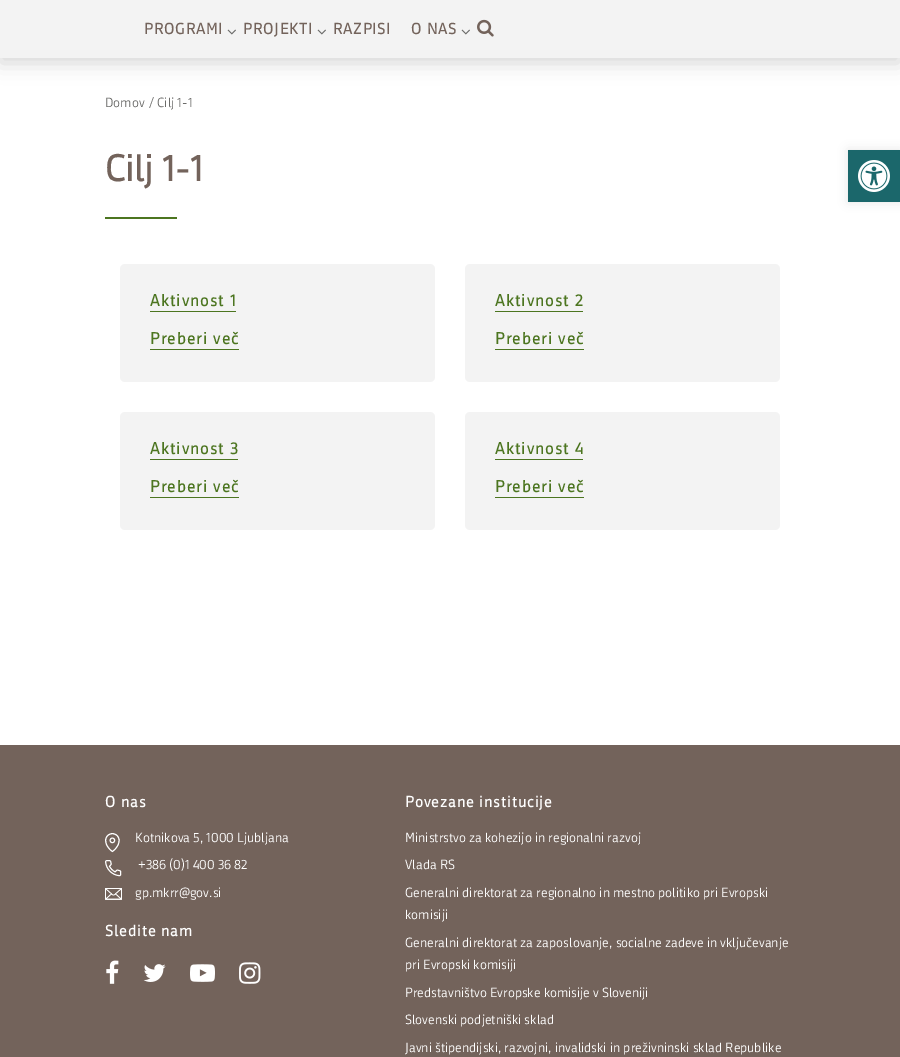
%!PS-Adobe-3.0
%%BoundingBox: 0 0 900 1057
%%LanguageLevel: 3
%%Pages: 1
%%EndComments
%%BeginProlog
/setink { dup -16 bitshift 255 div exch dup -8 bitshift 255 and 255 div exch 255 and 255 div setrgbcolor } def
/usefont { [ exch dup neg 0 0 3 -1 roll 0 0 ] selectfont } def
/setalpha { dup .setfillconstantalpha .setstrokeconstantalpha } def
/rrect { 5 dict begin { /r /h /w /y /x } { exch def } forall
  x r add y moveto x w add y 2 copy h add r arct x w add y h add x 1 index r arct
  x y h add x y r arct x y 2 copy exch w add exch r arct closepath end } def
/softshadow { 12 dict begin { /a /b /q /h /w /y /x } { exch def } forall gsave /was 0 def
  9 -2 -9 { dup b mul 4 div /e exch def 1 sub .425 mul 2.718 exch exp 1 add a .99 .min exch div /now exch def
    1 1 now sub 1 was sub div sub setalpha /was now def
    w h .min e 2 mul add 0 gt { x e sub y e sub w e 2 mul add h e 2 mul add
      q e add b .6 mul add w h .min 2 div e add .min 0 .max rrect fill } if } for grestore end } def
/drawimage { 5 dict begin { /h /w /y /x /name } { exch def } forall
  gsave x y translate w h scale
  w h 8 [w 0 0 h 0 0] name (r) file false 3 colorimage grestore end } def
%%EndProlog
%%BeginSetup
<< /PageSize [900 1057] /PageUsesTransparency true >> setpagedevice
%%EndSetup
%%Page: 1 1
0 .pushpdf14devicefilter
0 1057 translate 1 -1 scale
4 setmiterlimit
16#FFFFFF setink
0 0 900 1057 rectfill
16#000000 setink
0 -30 900 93 0 10 0.16 softshadow
16#F3F3F3 setink
0 0 900 58 rectfill
/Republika-Bold 15 usefont
16#73635B setink
144 34 moveto 1 0 (PROGRAMI) ashow
(img1.raw) 227 29 9 6 drawimage
243 34 moveto 1 0 (PROJEKTI) ashow
(img1.raw) 317 29 9 6 drawimage
333 34 moveto 1 0 (RAZPISI) ashow
411 34 moveto 1 0 (O NAS) ashow
(img1.raw) 461 29 9 6 drawimage
(img2.raw) 477 19 17 18 drawimage
/Republika-Regular 13 usefont
16#6B6B69 setink
[
    [(Domov) 105 107]
    [(/) 149 107]
    [(Cilj 1-1) 157 107]
] { aload pop moveto show } forall
/Republika-Bold 36 usefont
16#73635B setink
105 181 moveto (Cilj 1-1) show
16#4C7520 setink
105 217 72 2 rectfill
16#F3F3F3 setink
120 264 315 118 5 rrect fill
/Republika-Bold 16 usefont
16#4C7520 setink
150 306 moveto 1.25 0 (Aktivnost 1) ashow
150 311 86 1 rectfill
150 344 moveto 1.25 0 (Preberi več) ashow
150 349 89 1 rectfill
16#F3F3F3 setink
465 264 315 118 5 rrect fill
16#4C7520 setink
495 306 moveto 1.25 0 (Aktivnost 2) ashow
495 311 88 1 rectfill
495 344 moveto 1.25 0 (Preberi več) ashow
495 349 89 1 rectfill
16#F3F3F3 setink
120 412 315 118 5 rrect fill
16#4C7520 setink
150 454 moveto 1.25 0 (Aktivnost 3) ashow
150 459 88 1 rectfill
150 492 moveto 1.25 0 (Preberi več) ashow
150 497 89 1 rectfill
16#F3F3F3 setink
465 412 315 118 5 rrect fill
16#4C7520 setink
495 454 moveto 1.25 0 (Aktivnost 4) ashow
495 459 88 1 rectfill
495 492 moveto 1.25 0 (Preberi več) ashow
495 497 89 1 rectfill
16#000000 setink
848 150 52 52 0 5 0.1 softshadow
16#1B676B setink
848 150 52 52 rectfill
(img3.raw) 858 160 32 32 drawimage
16#73635B setink
0 745 900 312 rectfill
/Republika-Bold 15 usefont
16#FFFFFF setink
105 807 moveto 1 0 (O nas) ashow
(img4.raw) 105 833 15 20 drawimage
/Republika-Regular 13 usefont
135 842 moveto (Kotnikova 5, 1000 Ljubljana) show
(img5.raw) 105 860 17 17 drawimage
138 869 moveto (+386 \(0\)1 400 36 82) show
(img6.raw) 105 888 17 12 drawimage
135 897 moveto (gp.mkrr@gov.si) show
/Republika-Bold 15 usefont
105 936 moveto 1 0 (Sledite nam) ashow
(img7.raw) 106 960 13 24 drawimage
(img8.raw) 143 964 23 18 drawimage
(img9.raw) 190 964 25 18 drawimage
(img10.raw) 239 962 22 22 drawimage
405 807 moveto 1 0 (Povezane institucije) ashow
/Republika-Regular 13 usefont
[
    [(Ministrstvo za kohezijo in regionalni razvoj) 405 842]
    [(Vlada RS) 405 869]
    [(Generalni direktorat za regionalno in mestno politiko pri Evropski) 405 897]
    [(komisiji) 405 919]
    [(Generalni direktorat za zaposlovanje, socialne zadeve in vključevanje) 405 947]
    [(pri Evropski komisiji) 405 969]
    [(Predstavništvo Evropske komisije v Sloveniji) 405 997]
    [(Slovenski podjetniški sklad) 405 1024]
    [(Javni štipendijski, razvojni, invalidski in preživninski sklad Republike) 405 1052]
] { aload pop moveto show } forall
.poppdf14devicefilter showpage
%%EOF
